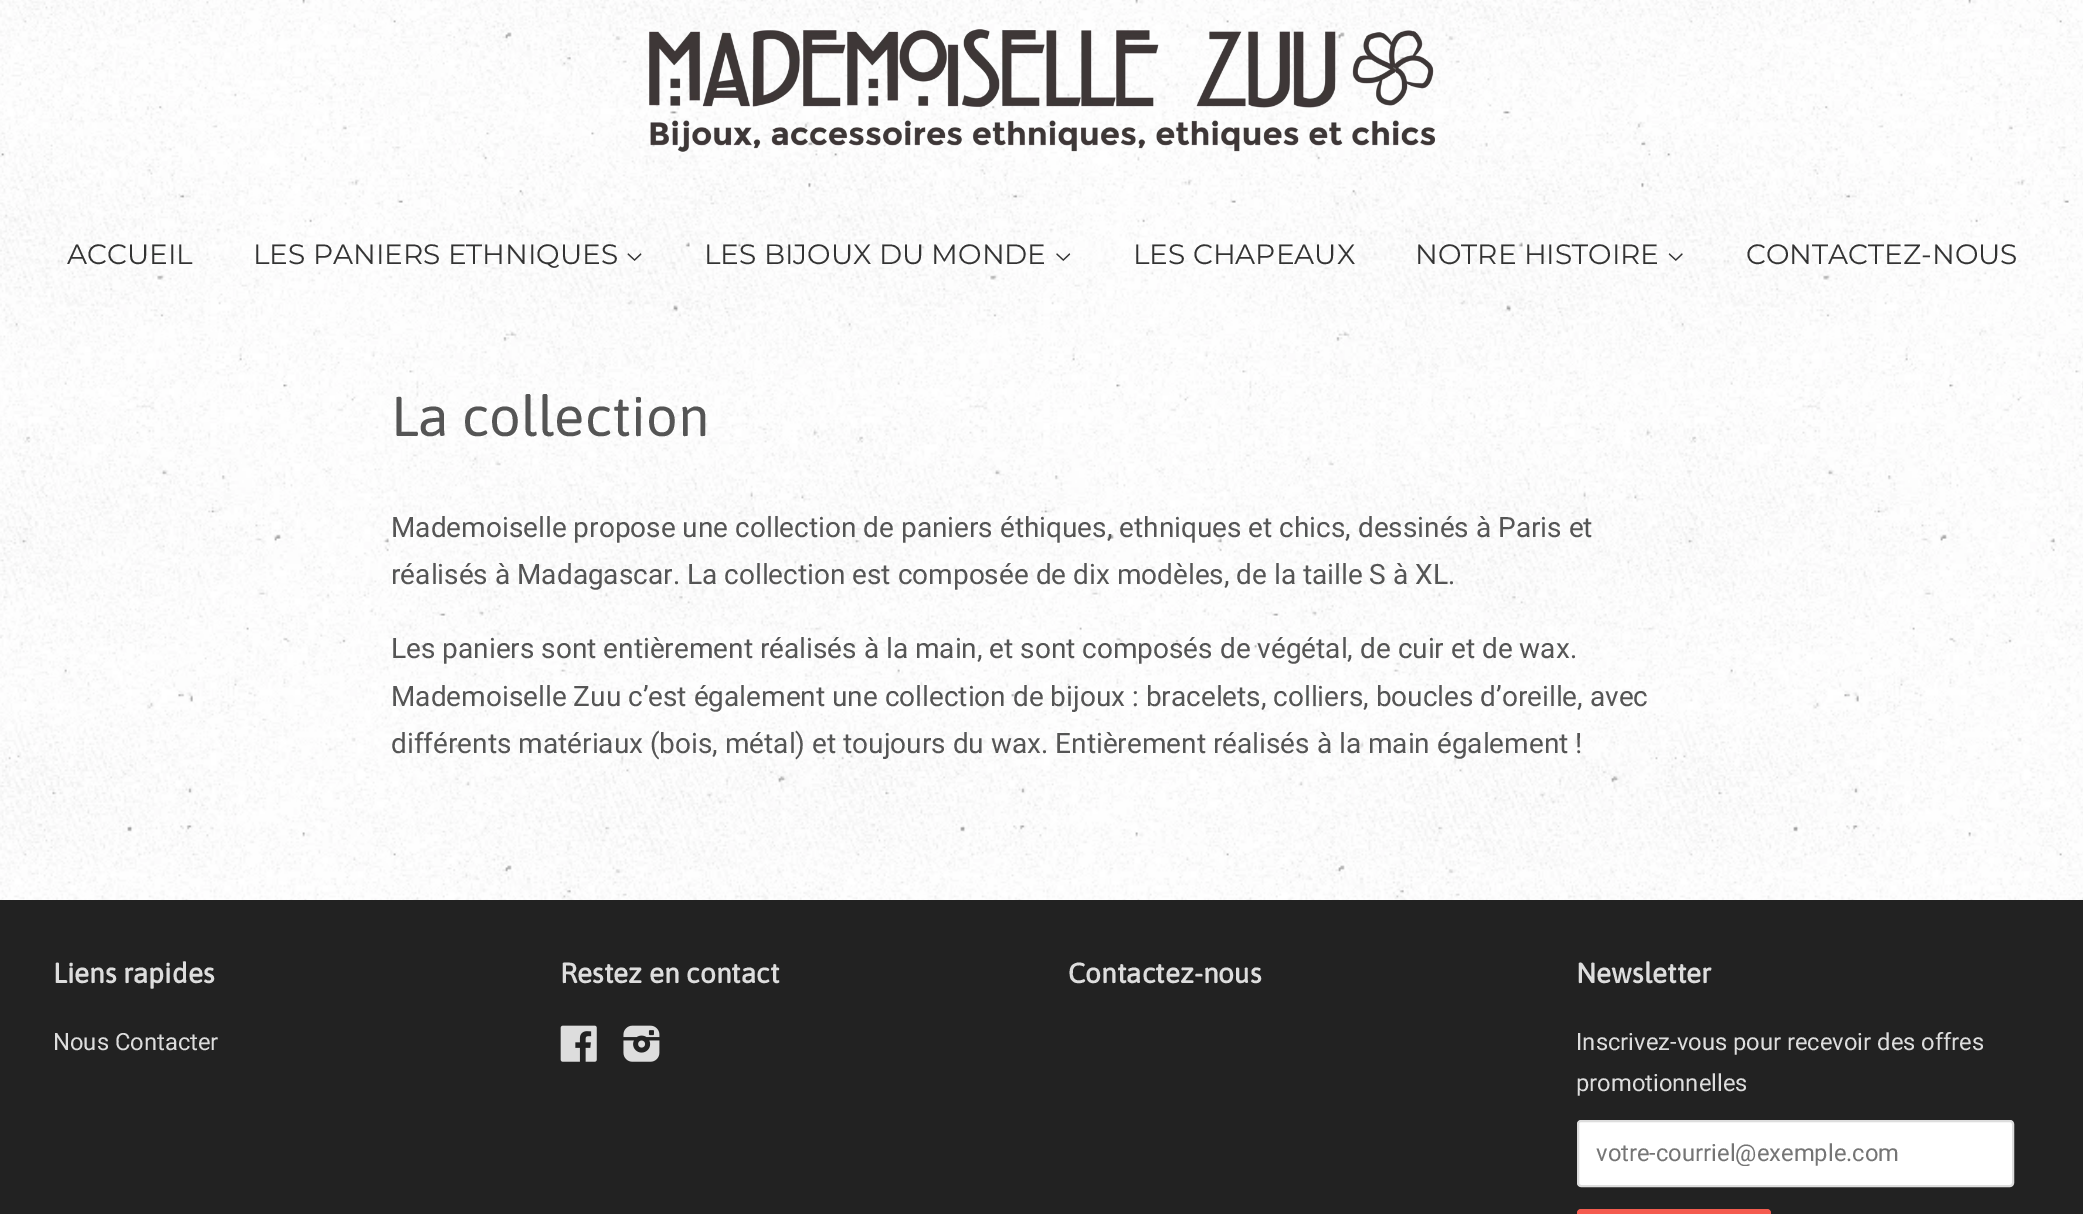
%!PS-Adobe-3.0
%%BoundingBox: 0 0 2083 1214
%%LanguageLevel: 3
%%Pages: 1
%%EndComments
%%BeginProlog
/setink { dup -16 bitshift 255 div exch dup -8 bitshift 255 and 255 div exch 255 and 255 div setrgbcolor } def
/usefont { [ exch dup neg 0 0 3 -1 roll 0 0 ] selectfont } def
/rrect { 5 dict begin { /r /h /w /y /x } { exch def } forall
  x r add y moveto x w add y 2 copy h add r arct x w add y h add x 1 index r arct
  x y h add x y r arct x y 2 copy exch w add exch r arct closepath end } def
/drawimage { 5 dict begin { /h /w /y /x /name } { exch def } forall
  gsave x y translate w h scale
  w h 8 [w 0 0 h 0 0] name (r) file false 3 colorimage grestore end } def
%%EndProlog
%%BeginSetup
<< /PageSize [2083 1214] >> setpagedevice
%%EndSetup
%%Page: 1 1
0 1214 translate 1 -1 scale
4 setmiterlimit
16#FFFFFF setink
0 0 2083 1214 rectfill
(img1.raw) 0 0 2083 900 drawimage
(img2.raw) 649 29 786 123 drawimage
/Montserrat-Thin 28 usefont
16#333333 setink
67 264 moveto (ACCUEIL) show
253 264 moveto (LES PANIERS ETHNIQUES) show
(img3.raw) 627 253 15 8 drawimage
704 264 moveto (LES BIJOUX DU MONDE) show
(img4.raw) 1056 253 15 8 drawimage
1133 264 moveto (LES CHAPEAUX) show
1415 264 moveto (NOTRE HISTOIRE) show
(img5.raw) 1668 253 15 8 drawimage
1746 264 moveto (CONTACTEZ-NOUS) show
/Asap-Regular 56 usefont
16#555555 setink
391 436 moveto (La collection) show
/Roboto-Regular 28 usefont
[
    [(Mademoiselle propose une collection de paniers éthiques, ethniques et chics, dessinés à Paris et) 391 537]
    [(réalisés à Madagascar. La collection est composée de dix modèles, de la taille S à XL.) 391 584]
    [(Les paniers sont entièrement réalisés à la main, et sont composés de végétal, de cuir et de wax.) 391 658]
    [(Mademoiselle Zuu c’est également une collection de bijoux : bracelets, colliers, boucles d’oreille, avec) 391 706]
    [(différents matériaux \(bois, métal\) et toujours du wax. Entièrement réalisés à la main également !) 391 753]
] { aload pop moveto show } forall
16#222222 setink
0 900 2083 314 rectfill
/Asap-Bold 28 usefont
16#DDDDDD setink
53 983 moveto (Liens rapides) show
/Roboto-Regular 23.75 usefont
53 1050 moveto (Nous Contacter) show
/Asap-Bold 28 usefont
560 983 moveto (Restez en contact) show
(img6.raw) 560 1025 37 37 drawimage
(img7.raw) 623 1025 37 37 drawimage
1068 983 moveto (Contactez-nous) show
1576 983 moveto (Newsletter) show
/Roboto-Regular 23.75 usefont
1576 1050 moveto (Inscrivez-vous pour recevoir des offres) show
1576 1091 moveto (promotionnelles) show
16#FFFFFF setink
1578 1121 435 65 3 rrect gsave fill grestore
16#DDDDDD setink
2 setlinewidth
stroke
gsave
1596 1138 399 28 rectclip
16#757575 setink
1596 1161 moveto (votre-courriel@exemple.com) show
grestore
16#F45B4F setink
1577 1209 194 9 4 rrect fill
showpage
%%EOF
